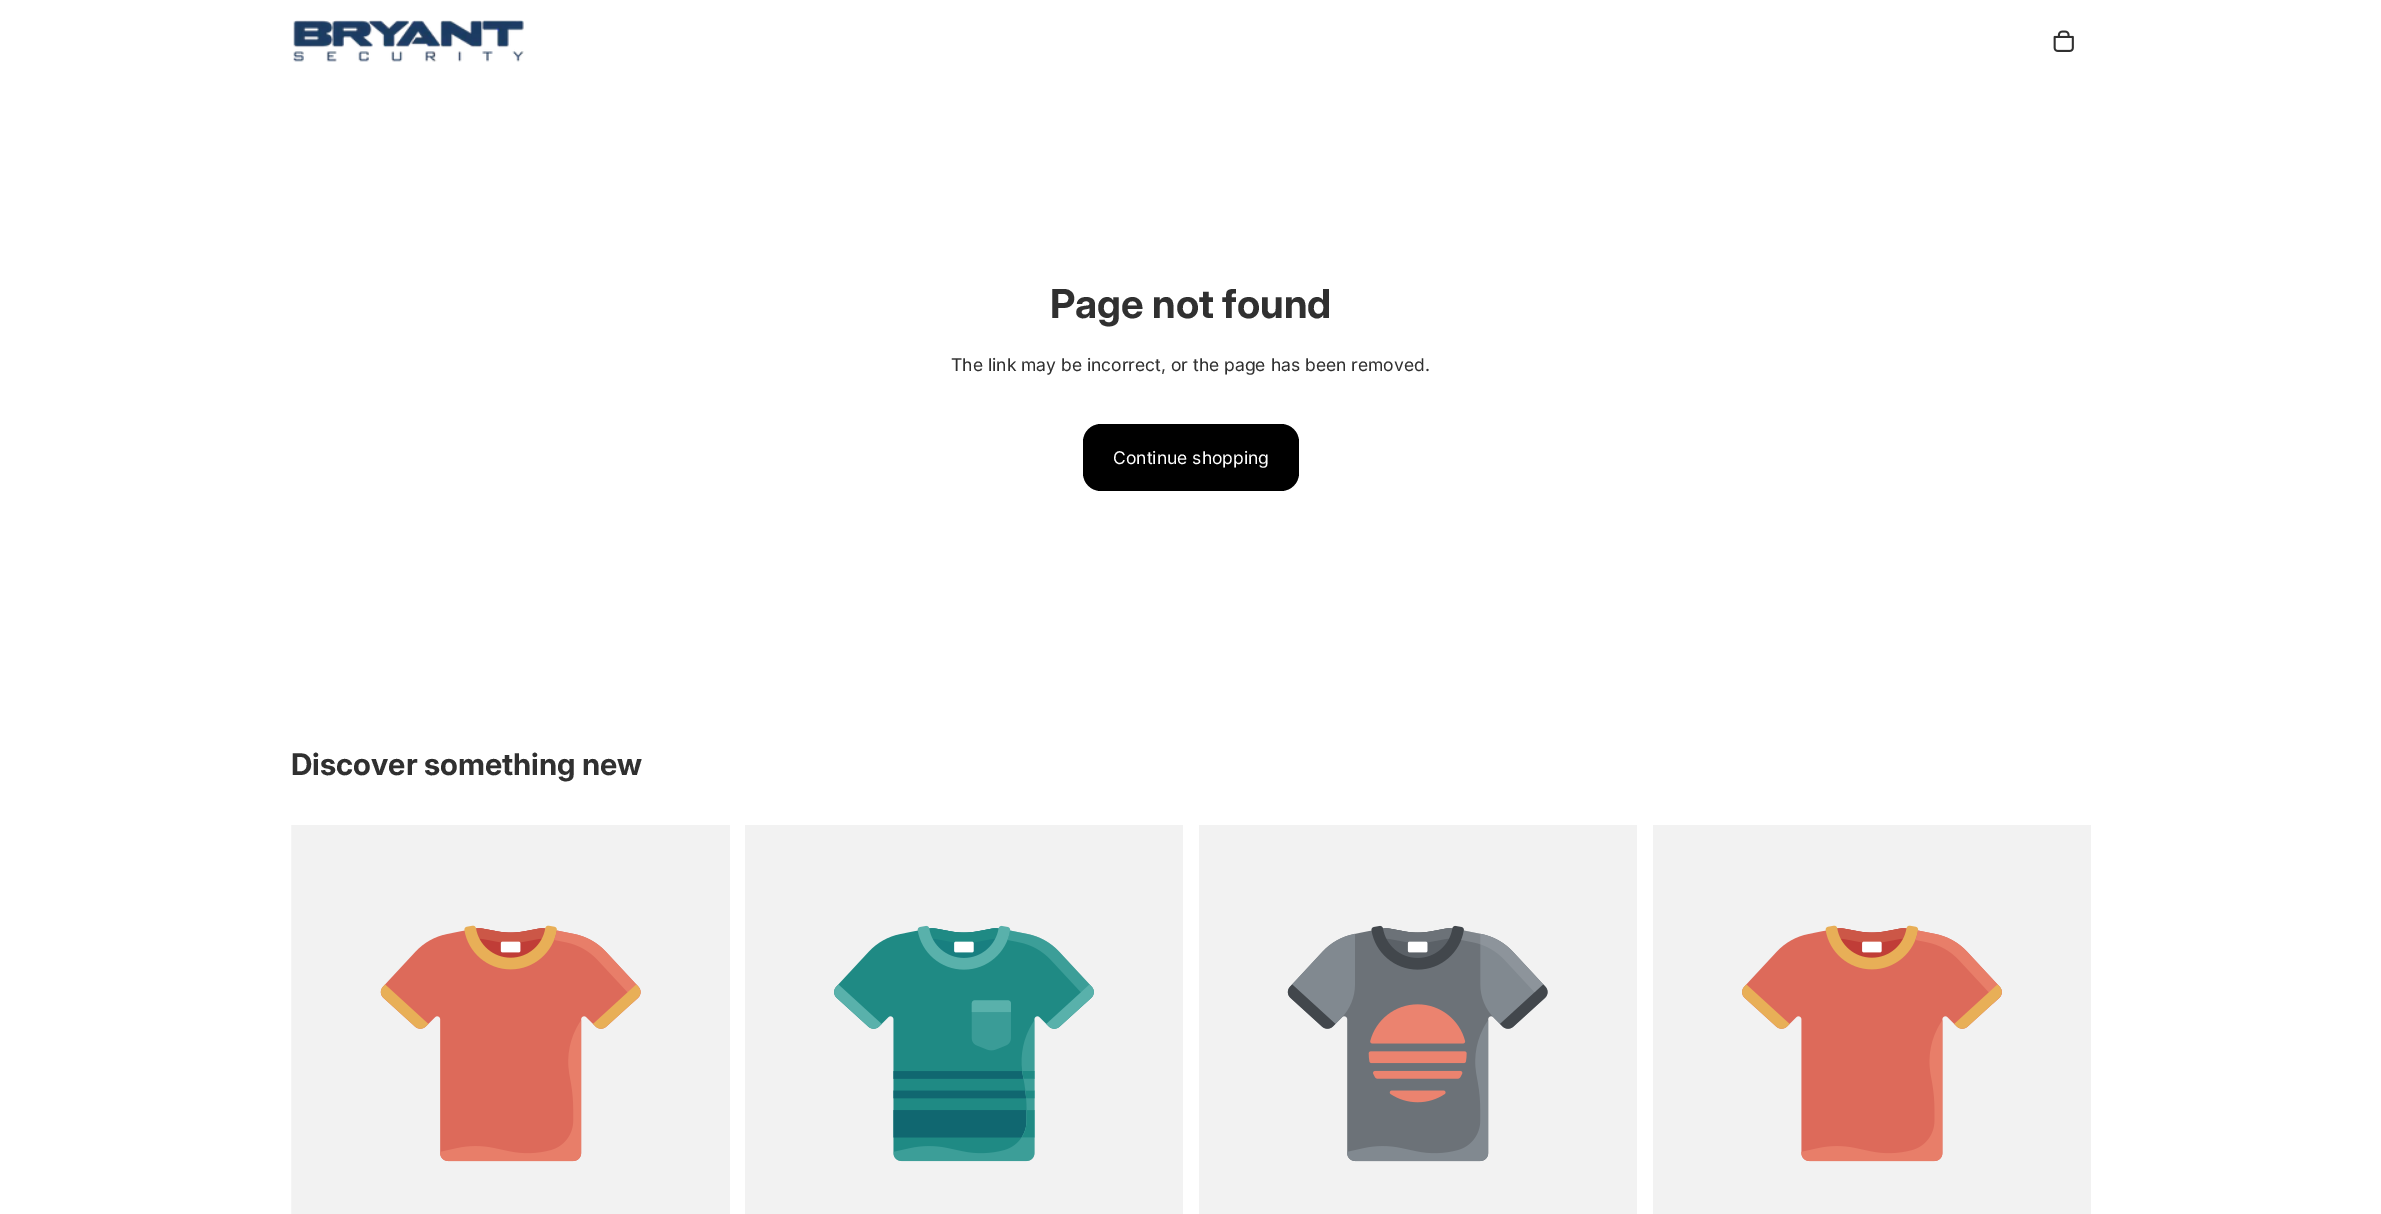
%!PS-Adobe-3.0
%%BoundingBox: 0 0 2381 1214
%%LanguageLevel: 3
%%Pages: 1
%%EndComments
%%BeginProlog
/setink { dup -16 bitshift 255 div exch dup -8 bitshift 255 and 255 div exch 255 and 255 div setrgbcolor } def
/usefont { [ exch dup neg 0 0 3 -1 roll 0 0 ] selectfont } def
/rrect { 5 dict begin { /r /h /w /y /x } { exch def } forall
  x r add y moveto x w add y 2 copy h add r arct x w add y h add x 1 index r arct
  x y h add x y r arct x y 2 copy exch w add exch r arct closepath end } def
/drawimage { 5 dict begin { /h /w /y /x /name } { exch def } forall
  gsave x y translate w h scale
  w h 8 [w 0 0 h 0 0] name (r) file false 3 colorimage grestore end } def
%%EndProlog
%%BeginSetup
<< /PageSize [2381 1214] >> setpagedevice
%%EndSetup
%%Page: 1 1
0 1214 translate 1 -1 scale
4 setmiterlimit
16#FFFFFF setink
0 0 2381 1214 rectfill
(img1.raw) 293 20 231 42 drawimage
(img2.raw) 2053 30 21 22 drawimage
/Inter-Bold 40 usefont
16#303030 setink
1050 318 moveto (Page not found) show
/Inter-Regular 17.5 usefont
951 371 moveto (The link may be incorrect, or the page has been removed.) show
16#000000 setink
1083 424 216 67 18 rrect fill
16#FFFFFF setink
1113 464 moveto (Continue shopping) show
/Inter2-Bold 30 usefont
16#303030 setink
291 775 moveto (Discover something new) show
(img3.raw) 291 825 439 389 drawimage
(img4.raw) 745 825 438 389 drawimage
(img5.raw) 1199 825 438 389 drawimage
(img6.raw) 1653 825 438 389 drawimage
showpage
%%EOF
